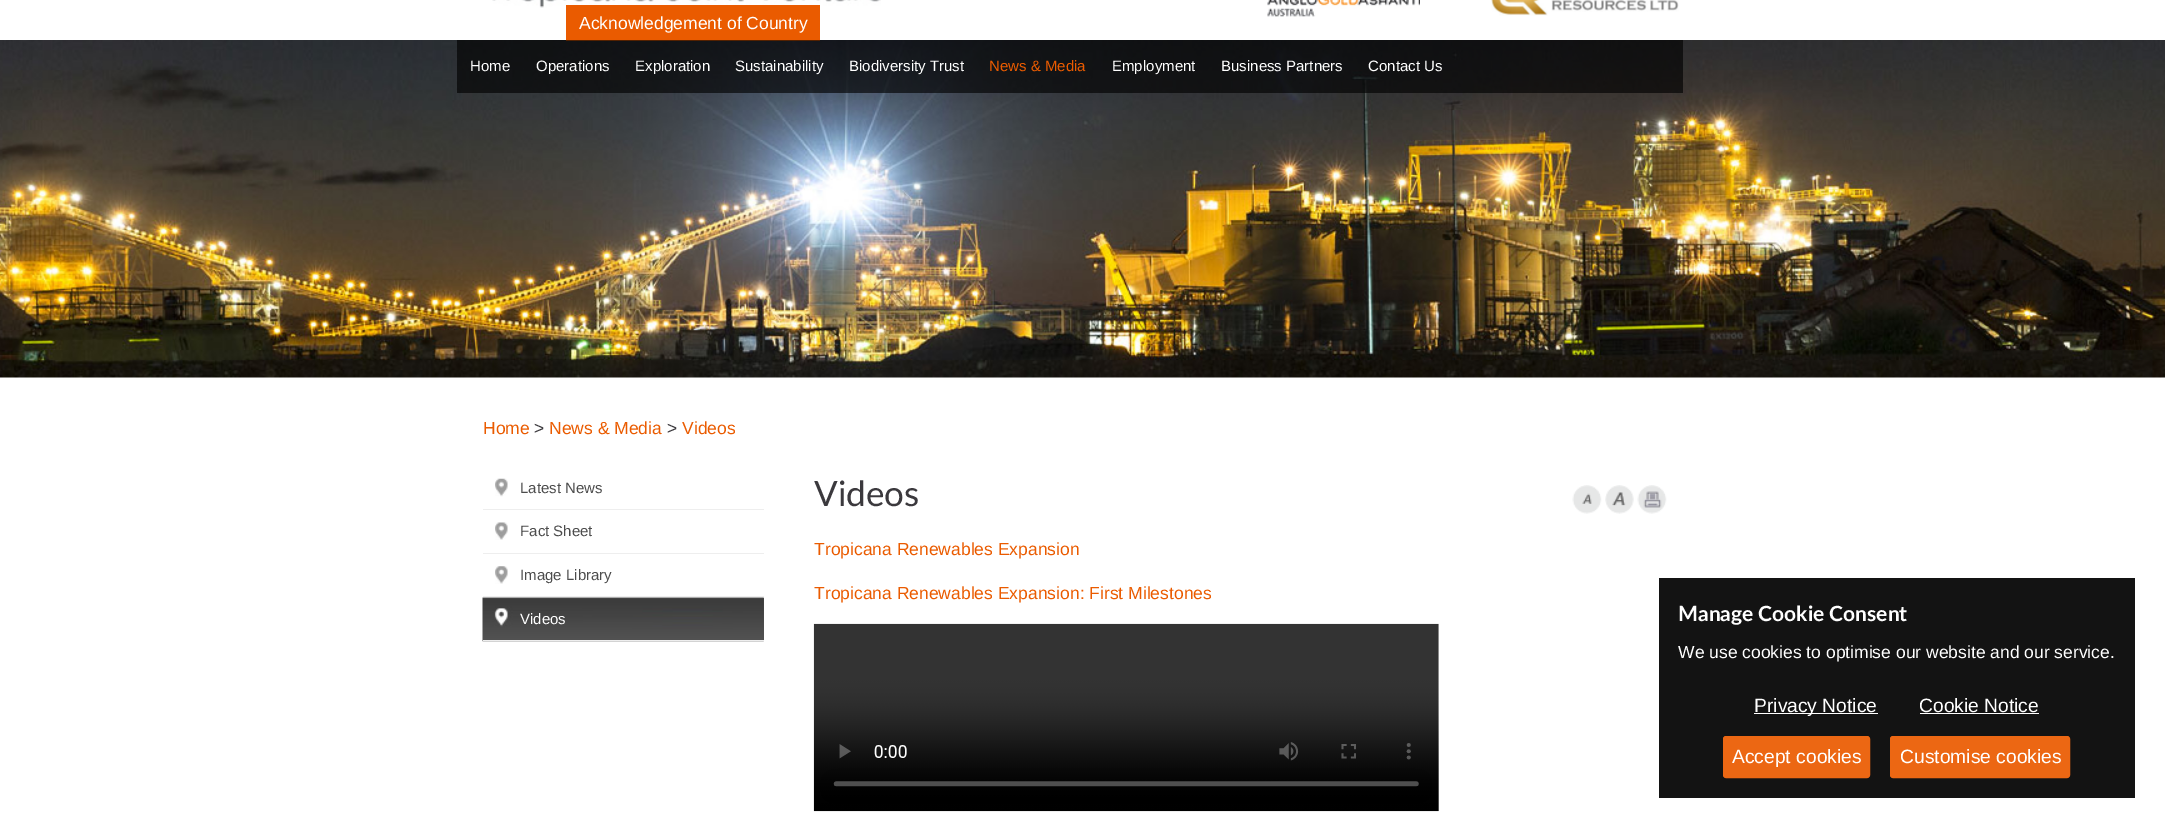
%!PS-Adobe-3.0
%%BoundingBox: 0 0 2165 827
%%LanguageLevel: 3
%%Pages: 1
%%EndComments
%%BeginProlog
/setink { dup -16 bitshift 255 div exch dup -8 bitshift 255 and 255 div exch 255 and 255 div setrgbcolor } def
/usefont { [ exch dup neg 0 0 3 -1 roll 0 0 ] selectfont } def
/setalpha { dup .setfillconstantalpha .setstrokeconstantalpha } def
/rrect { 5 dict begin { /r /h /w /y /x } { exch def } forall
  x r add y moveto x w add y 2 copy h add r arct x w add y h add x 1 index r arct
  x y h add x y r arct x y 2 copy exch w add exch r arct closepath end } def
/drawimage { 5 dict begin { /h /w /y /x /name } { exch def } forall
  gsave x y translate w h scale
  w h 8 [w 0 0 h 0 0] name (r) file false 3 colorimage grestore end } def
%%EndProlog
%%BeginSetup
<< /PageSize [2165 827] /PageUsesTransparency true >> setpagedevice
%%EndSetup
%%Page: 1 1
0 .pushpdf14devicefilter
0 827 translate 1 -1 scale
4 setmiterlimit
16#FFFFFF setink
0 0 2165 827 rectfill
(img1.raw) 492 0 389 8 drawimage
(img2.raw) 1267 0 153 17 drawimage
(img3.raw) 1491 0 188 16 drawimage
(img4.raw) 0 40 2165 338 drawimage
16#EA5B00 setink
566 5 254 36 rectfill
/LiberationSans-Regular 17.5 usefont
16#FFFFFF setink
579 29 moveto (Acknowledgement of Country) show
0.64 setalpha
16#000000 setink
457 40 1226 53 rectfill
/LiberationSans-Regular 15 usefont
1 setalpha
16#FFFFFF setink
[
    [(Home) 470 71]
    [(Operations) 536 71]
    [(Exploration) 635 71]
    [(Sustainability) 735 71]
    [(Biodiversity Trust) 849 71]
] { aload pop moveto show } forall
16#EA5B00 setink
989 71 moveto (News & Media) show
16#FFFFFF setink
[
    [(Employment) 1112 71]
    [(Business Partners) 1221 71]
    [(Contact Us) 1368 71]
] { aload pop moveto show } forall
/LiberationSans-Regular 17.5 usefont
16#EA5B00 setink
483 434 moveto (Home) show
16#3B393D setink
534 434 moveto (>) show
16#EA5B00 setink
549 434 moveto (News & Media) show
16#3B393D setink
667 434 moveto (>) show
16#EA5B00 setink
682 434 moveto (Videos) show
(img5.raw) 495 478 13 19 drawimage
16#EEEEEE setink
483 509 281 1 rectfill
/LiberationSans-Regular 15 usefont
16#4C4C4C setink
520 493 moveto (Latest News) show
(img6.raw) 495 522 13 18 drawimage
16#EEEEEE setink
483 553 281 1 rectfill
16#4C4C4C setink
520 536 moveto (Fact Sheet) show
(img7.raw) 495 566 13 18 drawimage
16#EEEEEE setink
483 596 281 1 rectfill
16#4C4C4C setink
520 580 moveto (Image Library) show
(img8.raw) 482 597 282 45 drawimage
16#EEEEEE setink
483 640 281 1 rectfill
16#FFFFFF setink
520 624 moveto (Videos) show
/Lato-Regular 35 usefont
16#3B393D setink
814 506 moveto (Videos) show
/LiberationSans-Regular 17.5 usefont
16#EA5B00 setink
814 555 moveto (Tropicana Renewables Expansion) show
814 599 moveto (Tropicana Renewables Expansion: First Milestones) show
(img9.raw) 813 623 626 189 drawimage
(img10.raw) 1572 485 30 29 drawimage
(img11.raw) 1605 485 29 29 drawimage
(img12.raw) 1637 485 30 29 drawimage
16#131313 setink
1659 578 476 220 rectfill
/Lato-Bold 21 usefont
16#FFFFFF setink
1678 621 moveto (Manage Cookie Consent) show
/LiberationSans-Regular 17.5 usefont
1678 658 moveto (We use cookies to optimise our website and our service.) show
1754 713 124 1 rectfill
/LiberationSans-Regular 19.25 usefont
1754 712 moveto (Privacy Notice) show
1919 712 moveto (Cookie Notice) show
1920 713 119 1 rectfill
16#EC6713 setink
1723.5 736.5 146 41 2.5 rrect gsave fill grestore
stroke
16#FFFFFF setink
1732 763 moveto (Accept cookies) show
16#EC6713 setink
1890.5 736.5 179 41 2.5 rrect gsave fill grestore
stroke
16#FFFFFF setink
1900 763 moveto (Customise cookies) show
.poppdf14devicefilter showpage
%%EOF
